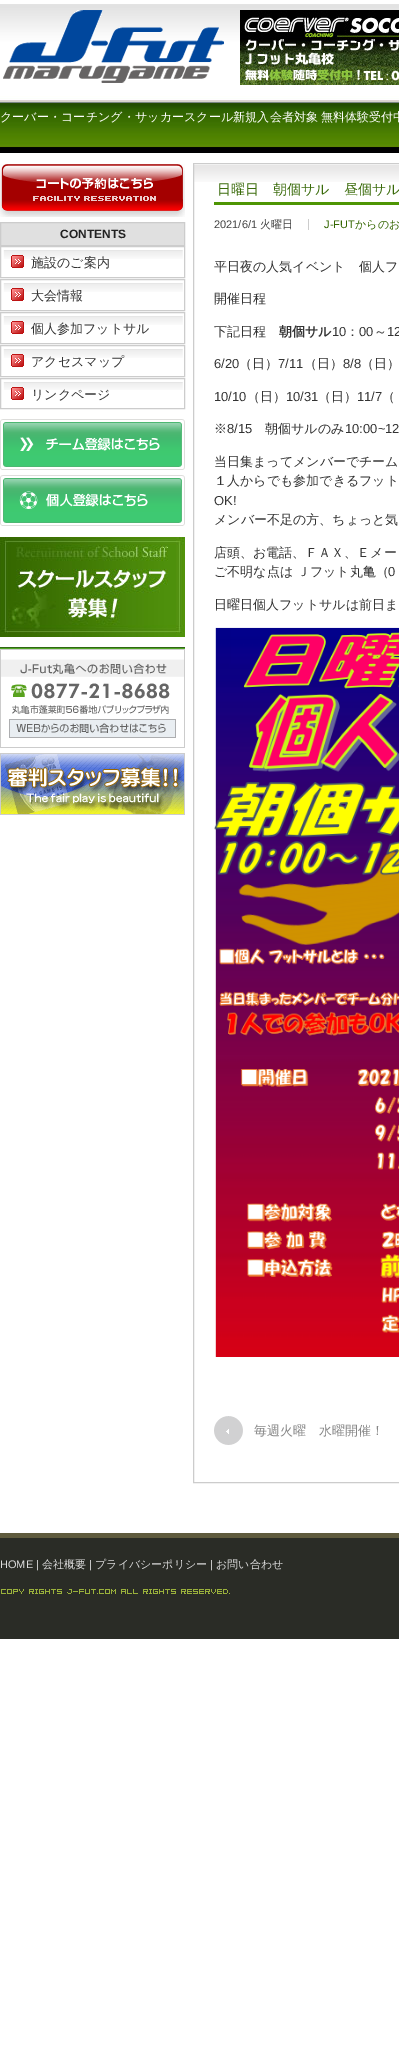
%!PS-Adobe-3.0
%%BoundingBox: 0 0 399 2068
%%LanguageLevel: 3
%%Pages: 1
%%EndComments
%%BeginProlog
/setink { dup -16 bitshift 255 div exch dup -8 bitshift 255 and 255 div exch 255 and 255 div setrgbcolor } def
/usefont { [ exch dup neg 0 0 3 -1 roll 0 0 ] selectfont } def
/drawimage { 5 dict begin { /h /w /y /x /name } { exch def } forall
  gsave x y translate w h scale
  w h 8 [w 0 0 h 0 0] name (r) file false 3 colorimage grestore end } def
%%EndProlog
%%BeginSetup
<< /PageSize [399 2068] >> setpagedevice
%%EndSetup
%%Page: 1 1
0 2068 translate 1 -1 scale
4 setmiterlimit
16#FFFFFF setink
0 0 399 2068 rectfill
(img1.raw) 0 4 399 149 drawimage
(img2.raw) 3 10 221 73 drawimage
(img3.raw) 240 10 159 75 drawimage
/WenQuanYiZenHei-Medium 12.1 usefont
0 121 moveto -1 0 32 (クーバー・コーチング・サッカースクール新規入会者対象 無料体験受付中) widthshow
(img4.raw) 0 164 185 53 drawimage
16#E0E0E0 setink
0.5 222.5 moveto 184.5 222.5 lineto 184.5 245.5 lineto 0.5 245.5 lineto closepath gsave fill grestore
16#CCCCCC setink
stroke
/LiberationSans-Bold 12 usefont
16#222222 setink
60 238 moveto (CONTENTS) show
(img5.raw) 3 250 180 9 drawimage
16#CCCCCC setink
0.5 246.5 184 31 rectstroke
(img6.raw) 11 255 13 13 drawimage
/WenQuanYiZenHei-Medium 13 usefont
16#333333 setink
31 267 moveto (施設のご案内) show
(img5.raw) 3 283 180 9 drawimage
16#CCCCCC setink
0.5 279.5 184 31 rectstroke
(img6.raw) 11 288 13 13 drawimage
16#333333 setink
31 300 moveto (大会情報) show
(img5.raw) 3 316 180 9 drawimage
16#CCCCCC setink
0.5 312.5 184 31 rectstroke
(img6.raw) 11 321 13 13 drawimage
16#333333 setink
31 333 moveto (個人参加フットサル) show
(img5.raw) 3 349 180 9 drawimage
16#CCCCCC setink
0.5 345.5 184 31 rectstroke
(img6.raw) 11 354 13 13 drawimage
16#333333 setink
31 366 moveto (アクセスマップ) show
(img7.raw) 3 382 180 8 drawimage
16#CCCCCC setink
0.5 378.5 184 30 rectstroke
(img8.raw) 11 387 13 13 drawimage
16#333333 setink
31 399 moveto (リンクページ) show
(img9.raw) 0 419 185 51 drawimage
(img10.raw) 0 475 185 51 drawimage
(img11.raw) 0 537 185 100 drawimage
(img12.raw) 0 647 185 101 drawimage
(img13.raw) 0 753 185 62 drawimage
(img14.raw) 194 165 205 17 drawimage
16#CCCCCC setink
193.5 163.5 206 1319 rectstroke
16#4E9504 setink
214 202 185 3 rectfill
/WenQuanYiZenHei-Medium 14 usefont
16#396A09 setink
217 194 moveto (日曜日　朝個サル　昼個サル) show
/LiberationSans-Regular 11 usefont
16#444444 setink
214 228 moveto (2021/6/1) show
/WenQuanYiZenHei-Medium 11 usefont
260 228 moveto (火曜日) show
16#CCCCCC setink
308 219 1 11 rectfill
/LiberationSans-Regular 11 usefont
16#336600 setink
324 228 moveto (J-FUT) show
/WenQuanYiZenHei-Medium 11 usefont
355 228 moveto (からのお) show
/WenQuanYiZenHei-Medium 13 usefont
16#333333 setink
[
    [(平日夜の人気イベント　個人フ) 214 271]
    [(開催日程) 214 303]
    [(下記日程) 214 336]
] { aload pop moveto show } forall
/WenQuanYiZenHei-Bold 13 usefont
279 336 moveto (朝個サル) show
/LiberationSans-Regular 13 usefont
332 336 moveto (10) show
/WenQuanYiZenHei-Medium 13 usefont
346 336 moveto (：) show
/LiberationSans-Regular 13 usefont
359 336 moveto (00) show
/WenQuanYiZenHei-Medium 13 usefont
374 336 moveto (～) show
/LiberationSans-Regular 13 usefont
387 336 moveto (12) show
214 368 moveto (6/20) show
/WenQuanYiZenHei-Medium 13 usefont
239 368 moveto (（日）) show
/LiberationSans-Regular 13 usefont
278 368 moveto (7/11) show
/WenQuanYiZenHei-Medium 13 usefont
304 368 moveto (（日）) show
/LiberationSans-Regular 13 usefont
343 368 moveto (8/8) show
/WenQuanYiZenHei-Medium 13 usefont
361 368 moveto (（日）) show
/LiberationSans-Regular 13 usefont
214 401 moveto (10/10) show
/WenQuanYiZenHei-Medium 13 usefont
247 401 moveto (（日）) show
/LiberationSans-Regular 13 usefont
286 401 moveto (10/31) show
/WenQuanYiZenHei-Medium 13 usefont
318 401 moveto (（日）) show
/LiberationSans-Regular 13 usefont
357 401 moveto (11/7) show
/WenQuanYiZenHei-Medium 13 usefont
382 401 moveto (（) show
214 433 moveto (※) show
/LiberationSans-Regular 13 usefont
227 433 moveto (8/15) show
/WenQuanYiZenHei-Medium 13 usefont
265 433 moveto (朝個サルのみ) show
/LiberationSans-Regular 13 usefont
345 433 moveto (10:00~12) show
/WenQuanYiZenHei-Medium 13 usefont
214 466 moveto (当日集まってメンバーでチーム) show
214 485 moveto (１人からでも参加できるフット) show
/LiberationSans-Regular 13 usefont
214 505 moveto (OK!) show
/WenQuanYiZenHei-Medium 13 usefont
[
    [(メンバー不足の方、ちょっと気) 214 524]
    [(店頭、お電話、ＦＡＸ、Ｅメー) 214 557]
    [(ご不明な点は Ｊフット丸亀（) 214 576]
] { aload pop moveto show } forall
/LiberationSans-Regular 13 usefont
388 576 moveto (0) show
/WenQuanYiZenHei-Medium 13 usefont
214 609 moveto (日曜日個人フットサルは前日ま) show
(img15.raw) 214 627 185 730 drawimage
(img16.raw) 214 1416 29 29 drawimage
16#888888 setink
254 1435 moveto (毎週火曜　水曜開催！) show
16#5F5B3E setink
0 1533 399 5 rectfill
16#2A2C26 setink
0 1538 399 101 rectfill
/LiberationSans-Regular 11 usefont
16#DDDDDD setink
0 1568 moveto (HOME) show
16#FFFFFF setink
36 1568 moveto (|) show
/WenQuanYiZenHei-Medium 11 usefont
16#DDDDDD setink
42 1568 moveto (会社概要) show
/LiberationSans-Regular 11 usefont
16#FFFFFF setink
89 1568 moveto (|) show
/WenQuanYiZenHei-Medium 11 usefont
16#DDDDDD setink
95 1568 moveto (プライバシーポリシー) show
/LiberationSans-Regular 11 usefont
16#FFFFFF setink
210 1568 moveto (|) show
/WenQuanYiZenHei-Medium 11 usefont
16#DDDDDD setink
216 1568 moveto (お問い合わせ) show
(img17.raw) 1 1589 229 5 drawimage
showpage
%%EOF
